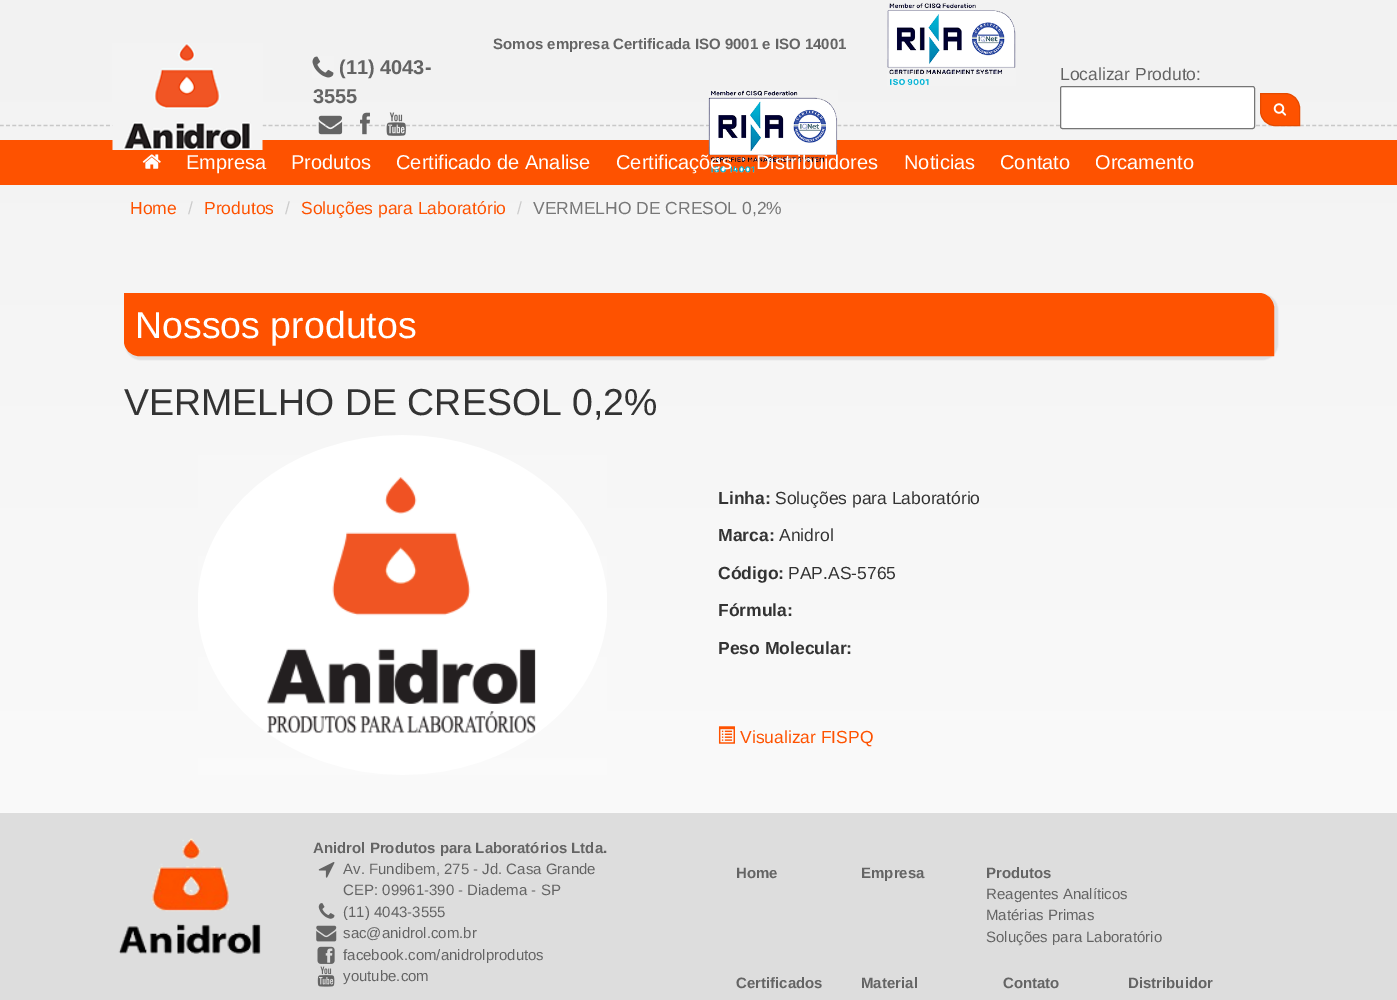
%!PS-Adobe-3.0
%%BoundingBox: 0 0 1397 1000
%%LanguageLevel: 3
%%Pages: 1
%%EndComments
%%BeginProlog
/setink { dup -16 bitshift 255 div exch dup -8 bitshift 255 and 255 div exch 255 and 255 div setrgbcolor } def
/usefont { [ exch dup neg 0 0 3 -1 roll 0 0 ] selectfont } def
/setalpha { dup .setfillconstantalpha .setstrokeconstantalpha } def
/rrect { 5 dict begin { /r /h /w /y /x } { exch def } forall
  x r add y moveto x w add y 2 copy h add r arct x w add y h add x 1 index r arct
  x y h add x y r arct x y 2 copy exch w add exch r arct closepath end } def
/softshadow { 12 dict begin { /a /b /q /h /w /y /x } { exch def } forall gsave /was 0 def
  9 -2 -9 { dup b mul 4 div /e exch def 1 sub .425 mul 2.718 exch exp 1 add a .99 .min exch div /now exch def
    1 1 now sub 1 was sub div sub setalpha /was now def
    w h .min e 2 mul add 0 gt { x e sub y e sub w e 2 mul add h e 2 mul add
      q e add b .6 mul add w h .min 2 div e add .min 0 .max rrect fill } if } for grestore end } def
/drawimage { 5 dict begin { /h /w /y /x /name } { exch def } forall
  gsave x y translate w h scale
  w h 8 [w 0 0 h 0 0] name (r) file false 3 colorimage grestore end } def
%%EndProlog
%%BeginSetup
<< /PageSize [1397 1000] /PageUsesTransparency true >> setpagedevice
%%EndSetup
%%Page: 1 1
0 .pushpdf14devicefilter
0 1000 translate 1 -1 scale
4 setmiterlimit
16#FFFFFF setink
0 0 1397 1000 rectfill
gsave 0 0 moveto 1397 0 lineto 1397 813 lineto 0 813 lineto closepath clip newpath
<< /ShadingType 2 /ColorSpace /DeviceRGB /Coords [699 0 699 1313] /Extend [true true] /Function << /FunctionType 2 /Domain [0 1] /C0 [0.949 0.949 0.949] /C1 [1 1 1] /N 1 >> >> shfill grestore
16#C8C8C8 setink
1.2 setlinewidth
[3.75 2.5] 0 setdash
0 125.5 moveto 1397.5 125.5 lineto stroke
16#FE5200 setink
0 140 1397 45 rectfill
(img1.raw) 112 43 151 107 drawimage
(img2.raw) 312 56 22 22 drawimage
/LiberationSans-Bold 20 usefont
16#646464 setink
339 74 moveto (\(11\) 4043-) show
313 103 moveto (3555) show
(img3.raw) 318 115 25 20 drawimage
(img4.raw) 360 112 10 23 drawimage
(img5.raw) 386 112 20 24 drawimage
/LiberationSans-Bold 15 usefont
493 49 moveto (Somos empresa Certificada ISO 9001 e ISO 14001) show
(img6.raw) 887 3 129 83 drawimage
(img7.raw) 708 90 130 83 drawimage
/LiberationSans-Regular 17.5 usefont
1060 80 moveto (Localizar Produto:) show
16#FFFFFF setink
1060.5 86.5 194 42 2 rrect gsave fill grestore
16#767676 setink
1 setlinewidth
[] 0 setdash
stroke
16#FE5200 setink
1260.5 93.5 moveto 1285 93.5 lineto 1293 93.5 1299.5 100 1299.5 108 curveto 1299.5 125.5 lineto 1275 125.5 lineto 1267 125.5 1260.5 119 1260.5 111 curveto closepath gsave fill grestore
16#E54A00 setink
stroke
(img8.raw) 1273 103 14 13 drawimage
(img9.raw) 142 154 19 15 drawimage
/LiberationSans-Regular 20 usefont
16#FFFFFF setink
[
    [(Empresa) 186 169]
    [(Produtos) 291 169]
    [(Certificado de Analise) 396 169]
    [(Certificações) 616 169]
    [(Distribuidores) 756 169]
    [(Noticias) 904 169]
    [(Contato) 1000 169]
    [(Orcamento) 1095 169]
] { aload pop moveto show } forall
/LiberationSans-Regular 17.5 usefont
16#FE5200 setink
130 214 moveto (Home) show
16#CCCCCC setink
188 214 moveto (/) show
16#FE5200 setink
204 214 moveto (Produtos) show
16#CCCCCC setink
285 214 moveto (/) show
16#FE5200 setink
301 214 moveto (Soluções para Laboratório) show
16#CCCCCC setink
517 214 moveto (/) show
16#777777 setink
533 214 moveto (VERMELHO DE CRESOL 0,2%) show
16#323232 setink
125 294 1153 66 16 0.5 0.1 softshadow
16#FE5200 setink
124.5 293.5 moveto 1259 293.5 lineto 1267 293.5 1273.5 300 1273.5 308 curveto 1273.5 355.5 lineto 139 355.5 lineto 131 355.5 124.5 349 124.5 341 curveto closepath gsave fill grestore
stroke
/LiberationSans-Regular 37.5 usefont
16#FFFFFF setink
135 338 moveto (Nossos produtos) show
16#333333 setink
124 415 moveto (VERMELHO DE CRESOL 0,2%) show
(img10.raw) 198 435 409 340 drawimage
/LiberationSans-Bold 17.5 usefont
718 504 moveto (Linha:) show
/LiberationSans-Regular 17.5 usefont
775 504 moveto (Soluções para Laboratório) show
/LiberationSans-Bold 17.5 usefont
718 541 moveto (Marca:) show
/LiberationSans-Regular 17.5 usefont
779 541 moveto (Anidrol) show
/LiberationSans-Bold 17.5 usefont
718 579 moveto (Código:) show
/LiberationSans-Regular 17.5 usefont
788 579 moveto (PAP.AS-5765) show
/LiberationSans-Bold 17.5 usefont
718 616 moveto (Fórmula:) show
718 654 moveto (Peso Molecular:) show
(img11.raw) 718 726 17 18 drawimage
/LiberationSans-Regular 17.5 usefont
16#FE5200 setink
740 743 moveto (Visualizar FISPQ) show
16#DDDDDD setink
0 813 1397 187 rectfill
(img12.raw) 118 838 143 116 drawimage
/LiberationSans-Bold 15 usefont
16#646464 setink
313 853 moveto (Anidrol Produtos para Laboratórios Ltda.) show
(img13.raw) 318 862 17 16 drawimage
/LiberationSans-Regular 15 usefont
343 874 moveto (Av. Fundibem, 275 - Jd. Casa Grande) show
343 895 moveto (CEP: 09961-390 - Diadema - SP) show
(img14.raw) 318 903 17 16 drawimage
343 917 moveto (\(11\) 4043-3555) show
(img15.raw) 316 925 21 17 drawimage
343 938 moveto (sac@anidrol.com.br) show
(img16.raw) 317 946 18 18 drawimage
343 960 moveto (facebook.com/anidrolprodutos) show
(img17.raw) 317 966 18 21 drawimage
343 981 moveto (youtube.com) show
/LiberationSans-Bold 15 usefont
[
    [(Home) 736 878]
    [(Empresa) 861 878]
    [(Produtos) 986 878]
] { aload pop moveto show } forall
/LiberationSans-Regular 15 usefont
[
    [(Reagentes Analíticos) 986 899]
    [(Matérias Primas) 986 920]
    [(Soluções para Laboratório) 986 942]
] { aload pop moveto show } forall
/LiberationSans-Bold 15 usefont
[
    [(Certificados) 736 988]
    [(Material) 861 988]
    [(Contato) 1003 988]
    [(Distribuidor) 1128 988]
] { aload pop moveto show } forall
.poppdf14devicefilter showpage
%%EOF
